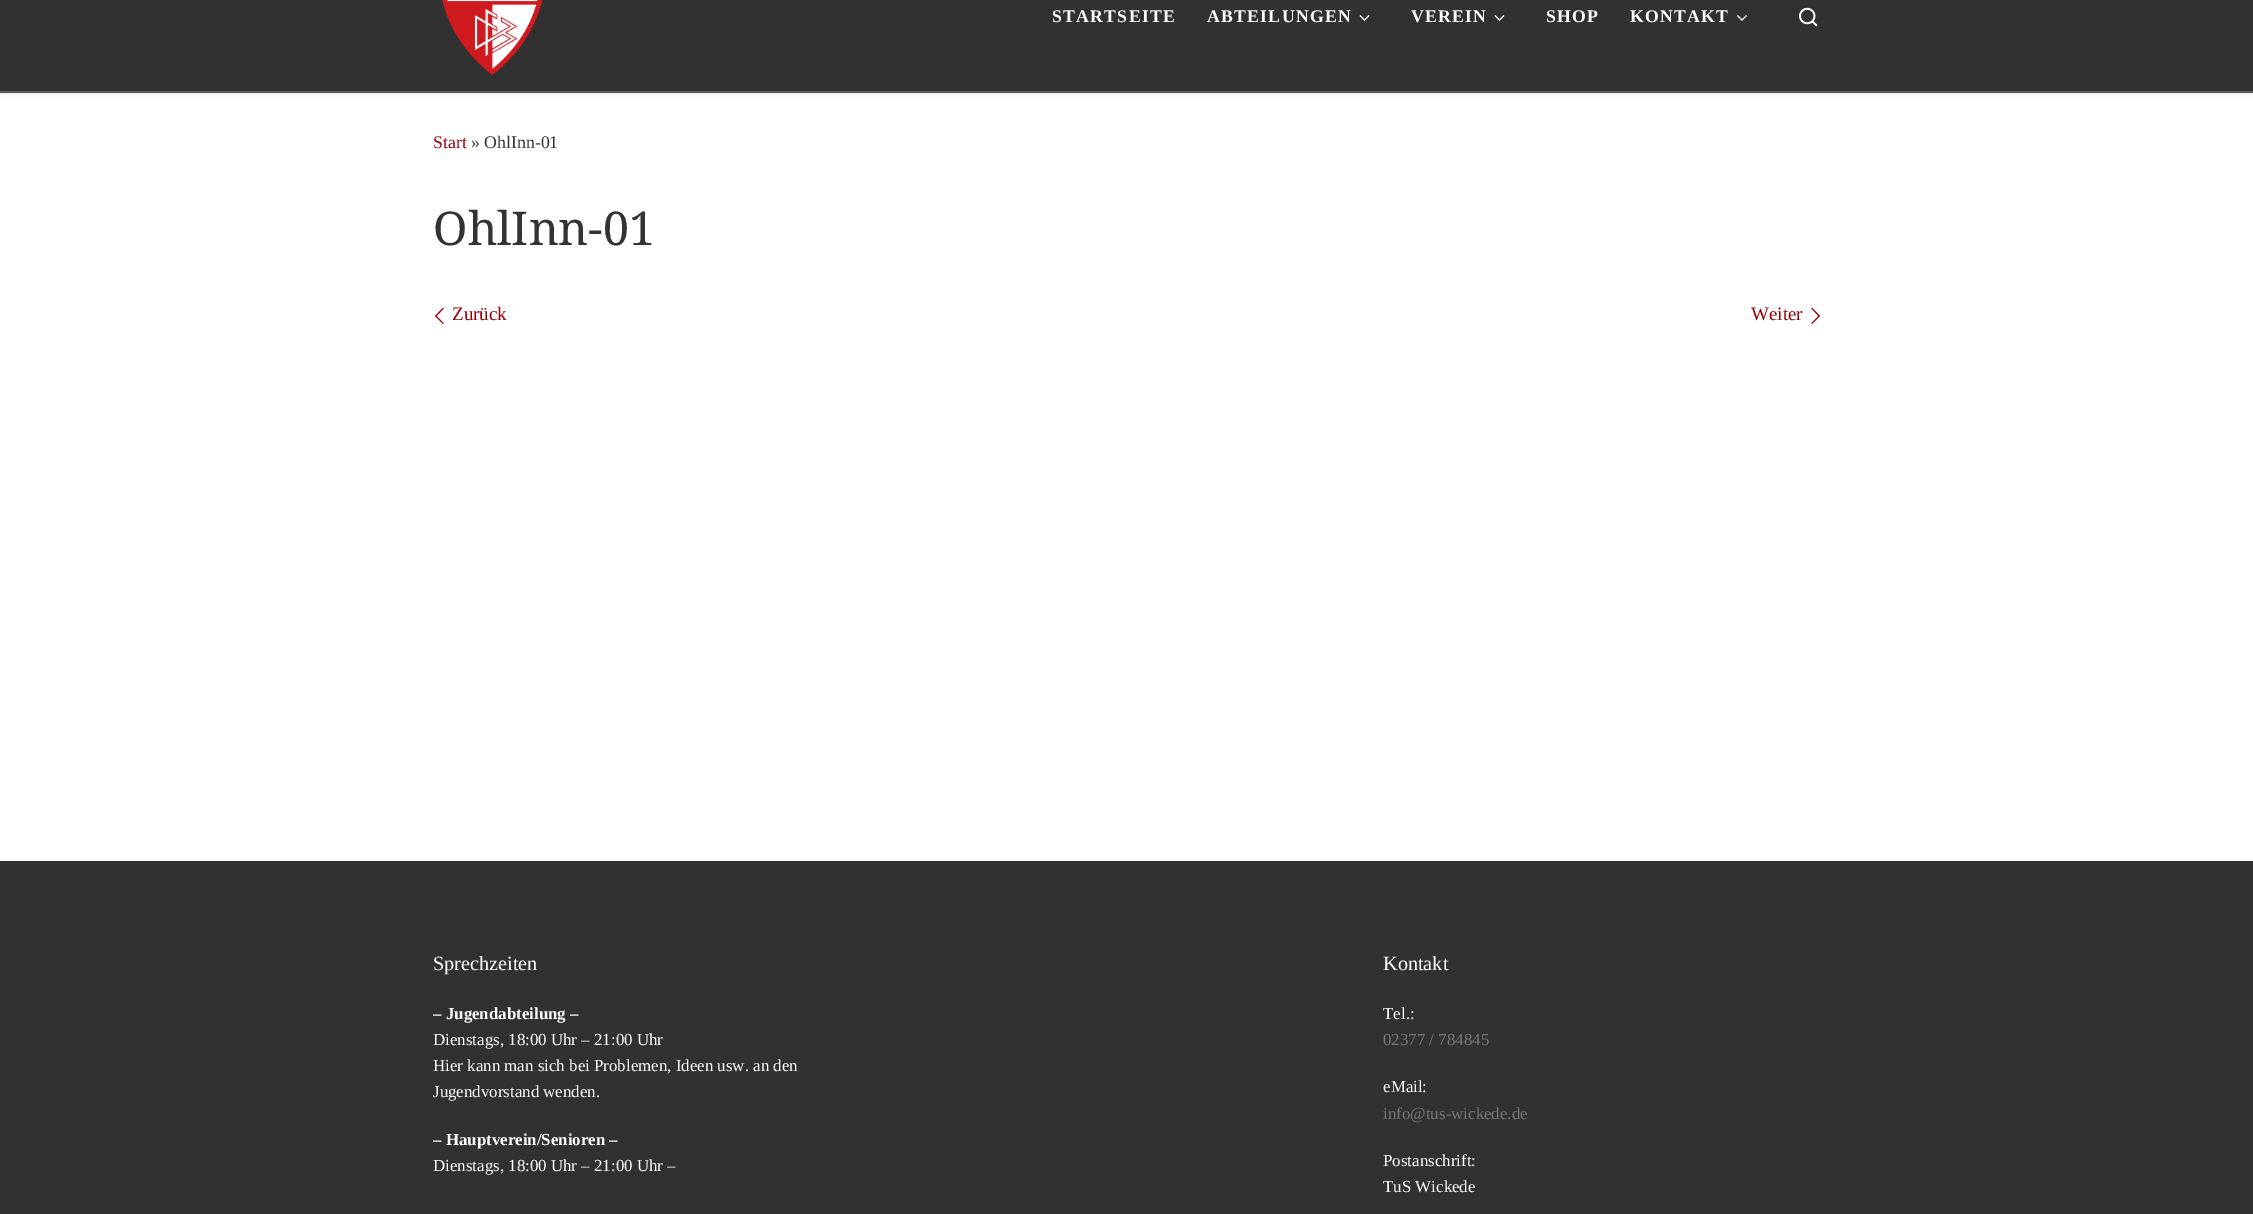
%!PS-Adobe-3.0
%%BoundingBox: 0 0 2253 1214
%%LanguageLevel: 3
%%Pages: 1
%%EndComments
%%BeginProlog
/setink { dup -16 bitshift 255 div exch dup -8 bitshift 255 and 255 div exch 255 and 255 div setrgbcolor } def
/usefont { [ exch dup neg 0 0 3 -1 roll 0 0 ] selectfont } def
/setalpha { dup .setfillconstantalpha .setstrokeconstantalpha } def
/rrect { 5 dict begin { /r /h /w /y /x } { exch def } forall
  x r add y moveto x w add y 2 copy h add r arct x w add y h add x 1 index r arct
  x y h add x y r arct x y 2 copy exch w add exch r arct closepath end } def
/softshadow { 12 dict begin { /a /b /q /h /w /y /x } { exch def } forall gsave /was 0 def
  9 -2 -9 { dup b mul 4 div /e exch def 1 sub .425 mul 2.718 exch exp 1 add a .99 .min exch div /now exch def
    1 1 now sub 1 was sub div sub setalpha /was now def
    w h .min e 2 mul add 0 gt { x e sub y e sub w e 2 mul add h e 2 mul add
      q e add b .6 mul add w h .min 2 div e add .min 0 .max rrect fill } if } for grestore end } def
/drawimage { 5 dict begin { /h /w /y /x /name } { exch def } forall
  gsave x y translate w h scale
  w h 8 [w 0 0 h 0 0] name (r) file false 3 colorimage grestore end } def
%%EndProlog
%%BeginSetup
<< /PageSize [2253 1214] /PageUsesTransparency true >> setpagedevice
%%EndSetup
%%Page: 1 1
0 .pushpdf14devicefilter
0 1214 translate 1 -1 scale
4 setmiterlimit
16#FFFFFF setink
0 0 2253 1214 rectfill
16#666666 setink
0 -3 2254 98 0 1 0.08 softshadow
16#313131 setink
0 0 2253 93 rectfill
16#444444 setink
0 91 2253 1 rectfill
0.15 setalpha
16#FFFFFF setink
0 91 moveto 0 93 lineto 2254 93 lineto 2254 -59 lineto 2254 91 lineto closepath fill
1 setalpha
(img1.raw) 442 0 101 76 drawimage
/LiberationSerif-Bold 17.75 usefont
1052 22 moveto 1.25 0 (STARTSEITE) ashow
1207 22 moveto 1.25 0 (ABTEILUNGEN) ashow
(img2.raw) 1359 15 11 6 drawimage
1411 22 moveto 1.25 0 (VEREIN) ashow
(img2.raw) 1494 15 11 6 drawimage
1546 22 moveto 1.25 0 (SHOP) ashow
1630 22 moveto 1.25 0 (KONTAKT) ashow
(img3.raw) 1737 15 10 6 drawimage
(img4.raw) 1799 7 19 20 drawimage
/LiberationSerif-Regular 17.75 usefont
16#990005 setink
433 148 moveto (Start) show
16#333333 setink
471 148 moveto (» OhlInn-01) show
/NotoSerif-Regular 46.5 usefont
433 245 moveto (OhlInn-01) show
(img5.raw) 435 307 9 17 drawimage
/LiberationSerif-Regular 19 usefont
16#990005 setink
452 320 moveto (Zurück) show
1751 320 moveto (Weiter) show
(img6.raw) 1811 307 9 17 drawimage
16#313131 setink
0 861 2253 353 rectfill
/LiberationSerif-Regular 20.25 usefont
16#FFFFFF setink
433 970 moveto (Sprechzeiten) show
/LiberationSerif-Bold 16.9 usefont
433 1019 moveto (– Jugendabteilung –) show
/LiberationSerif-Regular 16.9 usefont
[
    [(Dienstags, 18:00 Uhr – 21:00 Uhr) 433 1045]
    [(Hier kann man sich bei Problemen, Ideen usw. an den) 433 1071]
    [(Jugendvorstand wenden.) 433 1097]
] { aload pop moveto show } forall
/LiberationSerif-Bold 16.9 usefont
433 1145 moveto (– Hauptverein/Senioren –) show
/LiberationSerif-Regular 16.9 usefont
433 1171 moveto (Dienstags, 18:00 Uhr – 21:00 Uhr –) show
/LiberationSerif-Regular 20.25 usefont
1383 970 moveto (Kontakt) show
/LiberationSerif-Regular 16.9 usefont
1383 1019 moveto (Tel.:) show
16#777777 setink
1383 1045 moveto (02377 / 784845) show
16#FFFFFF setink
1383 1092 moveto (eMail:) show
16#777777 setink
1383 1119 moveto (info@tus-wickede.de) show
16#FFFFFF setink
1383 1166 moveto (Postanschrift:) show
1383 1192 moveto (TuS Wickede) show
.poppdf14devicefilter showpage
%%EOF
